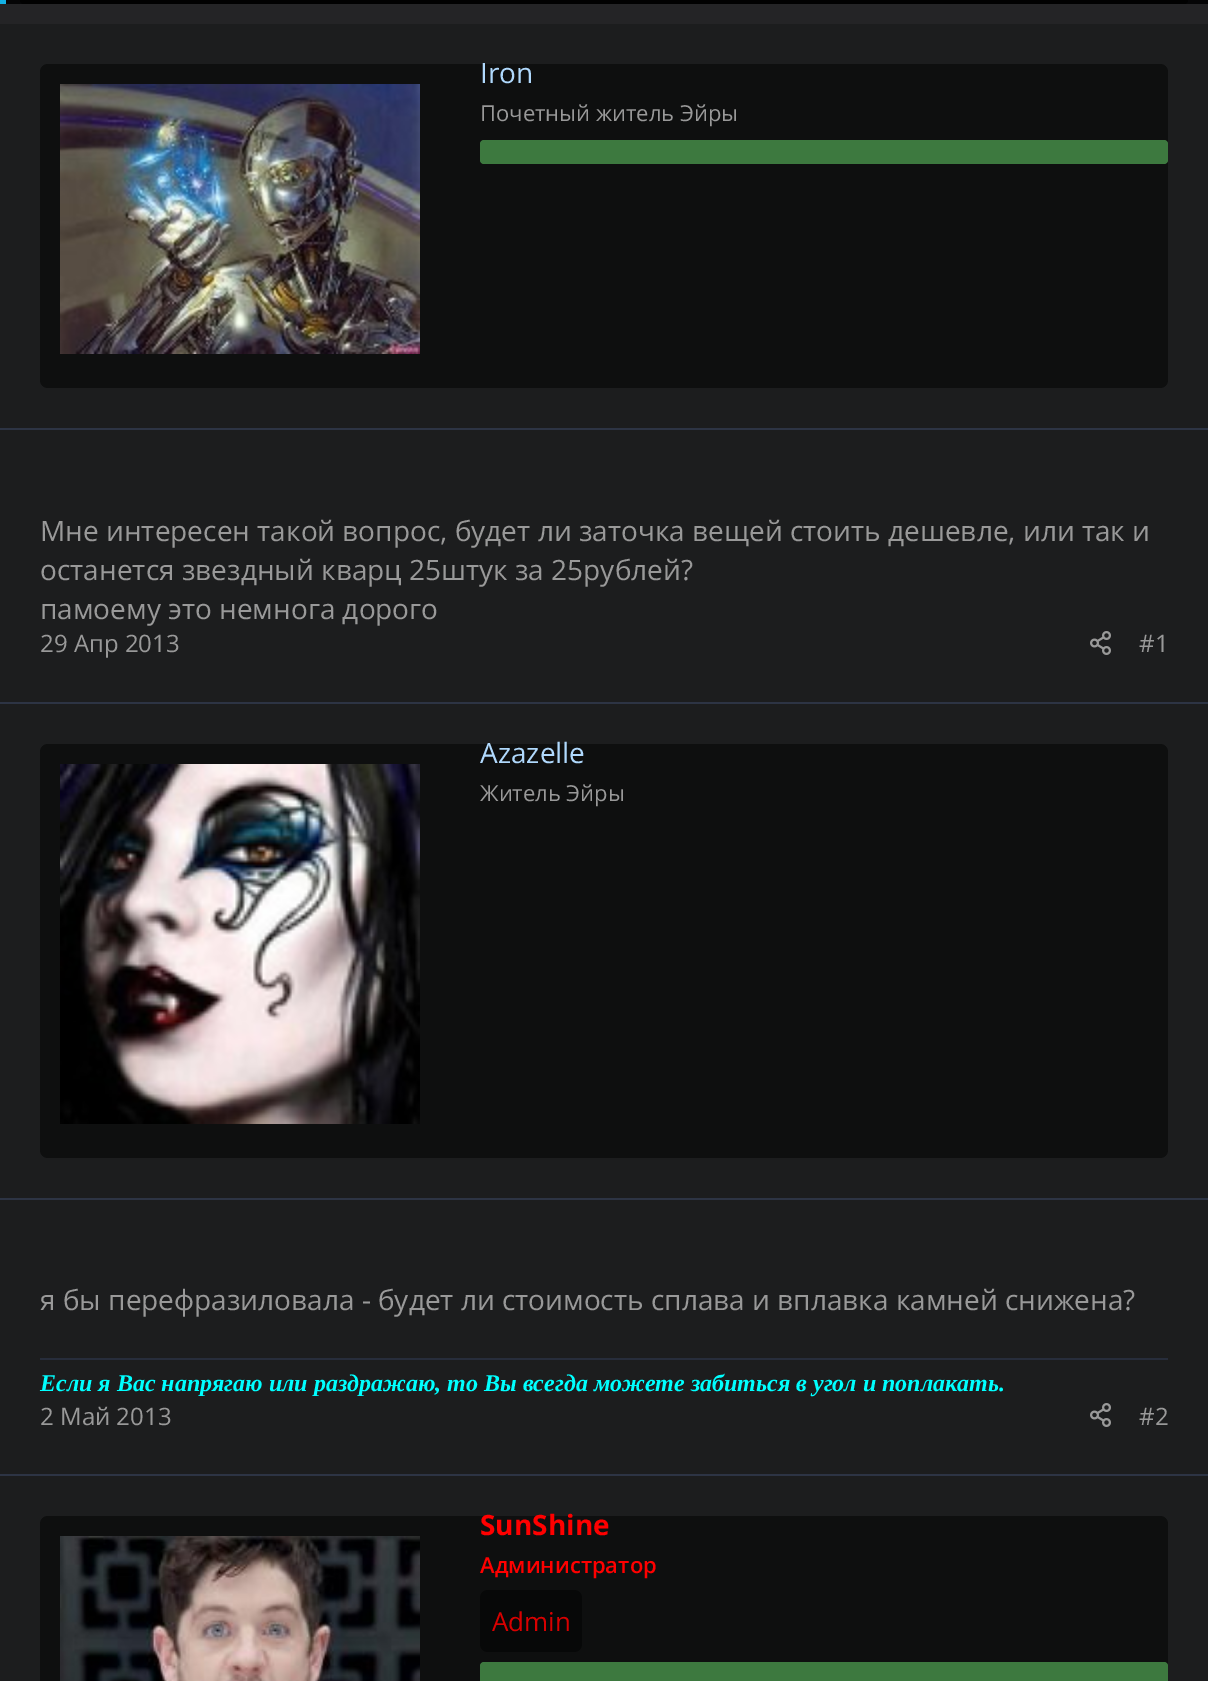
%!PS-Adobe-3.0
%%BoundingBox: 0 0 1208 1681
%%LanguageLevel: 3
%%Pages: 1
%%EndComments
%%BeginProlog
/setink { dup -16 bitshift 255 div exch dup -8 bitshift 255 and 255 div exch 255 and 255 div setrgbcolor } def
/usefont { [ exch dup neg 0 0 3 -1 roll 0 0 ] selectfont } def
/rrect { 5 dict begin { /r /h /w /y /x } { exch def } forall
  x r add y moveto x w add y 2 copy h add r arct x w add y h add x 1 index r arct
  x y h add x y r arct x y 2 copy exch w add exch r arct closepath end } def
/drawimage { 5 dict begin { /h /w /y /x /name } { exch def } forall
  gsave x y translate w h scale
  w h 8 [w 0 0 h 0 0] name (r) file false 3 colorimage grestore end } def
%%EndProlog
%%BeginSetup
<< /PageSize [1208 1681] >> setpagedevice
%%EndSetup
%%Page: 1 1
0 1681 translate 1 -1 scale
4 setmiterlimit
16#242426 setink
0 0 1208 1681 rectfill
16#050506 setink
0 0 1208 4 rectfill
16#010101 setink
20 -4 1168 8 4 rrect fill
[
    [0 0 6 4 16#13B1E4]
    [0 24 1208 678 16#1C1D1E]
    [0 428 1208 2 16#2D3444]
] { aload pop setink rectfill } forall
16#0E0F0F setink
40 64 1128 324 8 rrect fill
(img1.raw) 60 84 360 270 drawimage
/OpenSans-Regular 28 usefont
16#B0D9FD setink
480 83 moveto (Iron) show
/OpenSans-Regular 22 usefont
16#999999 setink
480 121 moveto (Почетный житель Эйры) show
16#3D793F setink
480 140 688 24 4 rrect fill
/OpenSans-Regular 28 usefont
16#999999 setink
[
    [(Мне интересен такой вопрос, будет ли заточка вещей стоить дешевле, или так и) 40 541]
    [(останется звездный кварц 25штук за 25рублей?) 40 580]
    [(памоему это немнога дорого) 40 619]
] { aload pop moveto show } forall
/OpenSans-Regular 24 usefont
40 652 moveto (29 Апр 2013) show
(img2.raw) 1090 631 21 24 drawimage
1139 652 moveto (#1) show
[
    [0 704 1208 770 16#1C1D1E]
    [0 702 1208 2 16#2D3444]
    [0 1198 1208 2 16#2D3444]
] { aload pop setink rectfill } forall
16#0E0F0F setink
40 744 1128 414 8 rrect fill
(img3.raw) 60 764 360 360 drawimage
/OpenSans-Regular 28 usefont
16#B0D9FD setink
480 763 moveto (Azazelle) show
/OpenSans-Regular 22 usefont
16#999999 setink
480 801 moveto (Житель Эйры) show
/OpenSans-Regular 28 usefont
40 1310 moveto (я бы перефразиловала - будет ли стоимость сплава и вплавка камней снижена?) show
16#272D3B setink
40 1358 1128 2 rectfill
/LiberationSerif-BoldItalic 24 usefont
16#00FFFF setink
40 1391 moveto (Если я Вас напрягаю или раздражаю, то Вы всегда можете забиться в угол и поплакать.) show
/OpenSans-Regular 24 usefont
16#999999 setink
40 1425 moveto (2 Май 2013) show
(img2.raw) 1090 1403 21 24 drawimage
1139 1425 moveto (#2) show
16#1C1D1E setink
0 1476 1208 205 rectfill
16#2D3444 setink
0 1474 1208 2 rectfill
16#0E0F0F setink
40 1516 1128 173 8 rrect fill
(img4.raw) 60 1536 360 145 drawimage
/OpenSans-Bold 28 usefont
16#FF0000 setink
480 1535 moveto (SunShine) show
/OpenSans-SemiBold 22 usefont
480 1573 moveto (Администратор) show
16#070808 setink
480 1590 102 62 8 rrect fill
/OpenSans-Regular 26 usefont
16#D80000 setink
492 1631 moveto (Admin) show
16#3D793F setink
480 1662 688 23 4 rrect fill
showpage
%%EOF
